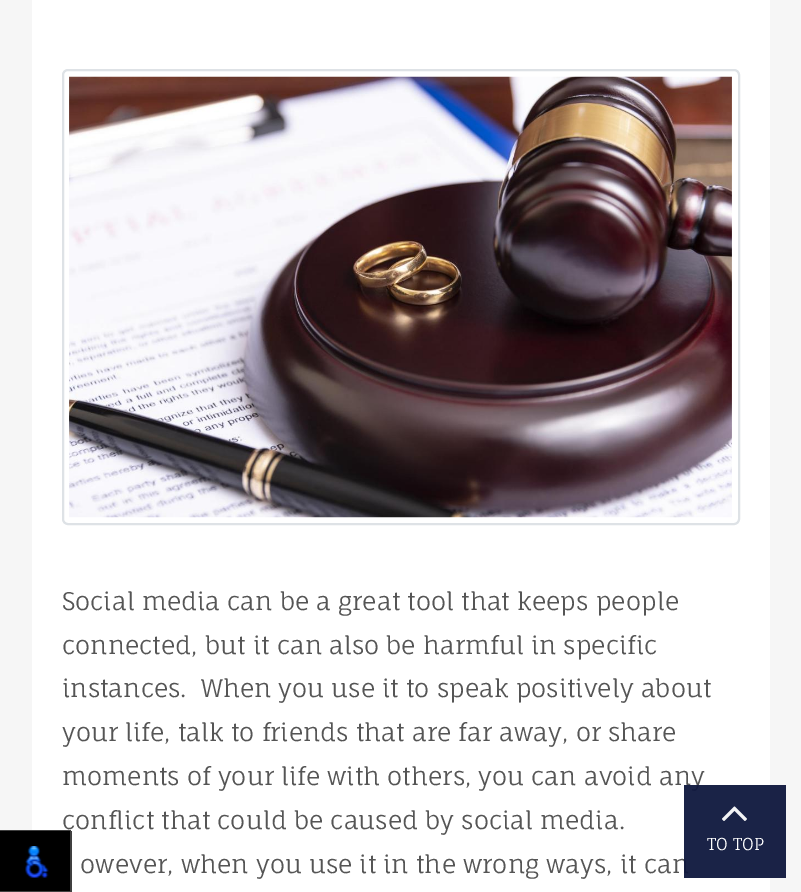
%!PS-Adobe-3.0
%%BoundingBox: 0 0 801 892
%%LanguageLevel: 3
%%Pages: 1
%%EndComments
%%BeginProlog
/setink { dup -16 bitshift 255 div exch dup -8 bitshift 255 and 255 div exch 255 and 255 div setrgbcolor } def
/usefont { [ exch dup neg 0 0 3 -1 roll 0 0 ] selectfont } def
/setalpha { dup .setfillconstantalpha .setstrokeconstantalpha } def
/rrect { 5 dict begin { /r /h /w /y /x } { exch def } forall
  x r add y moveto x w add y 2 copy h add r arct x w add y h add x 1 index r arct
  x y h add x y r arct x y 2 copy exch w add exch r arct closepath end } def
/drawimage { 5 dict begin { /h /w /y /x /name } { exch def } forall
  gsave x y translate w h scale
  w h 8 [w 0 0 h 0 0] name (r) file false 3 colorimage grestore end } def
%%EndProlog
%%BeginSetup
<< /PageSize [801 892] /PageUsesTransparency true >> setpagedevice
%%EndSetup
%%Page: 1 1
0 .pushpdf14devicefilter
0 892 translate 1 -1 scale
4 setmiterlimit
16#F6F6F6 setink
0 0 801 892 rectfill
16#FFFFFF setink
32 0 738 892 rectfill
/FaunaOne-Regular 24.3 usefont
16#555555 setink
62 829 moveto (conflict that could be caused by social media.) show
16#404040 setink
-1 830 moveto -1 891 lineto 0 891 lineto 0 831 lineto 71 831 lineto 71 830 lineto closepath fill
16#000000 setink
0 831 70 60 rectfill
gsave
0 831 72 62 rectclip
16#404040 setink
-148 682 moveto 220 682 lineto 220 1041 lineto -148 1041 lineto closepath -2 830 moveto 70 830 lineto 70 891 lineto -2 891 lineto closepath eofill
grestore
(img1.raw) 25 846 24 32 drawimage
16#DEE2E6 setink
2 setlinewidth
63 70 676 454 5 rrect stroke
(img2.raw) 69 76 663 442 drawimage
16#555555 setink
[
    [(Social media can be a great tool that keeps people) 62 610]
    [(connected, but it can also be harmful in specific) 62 654]
    [(instances.  When you use it to speak positively about) 62 697]
    [(your life, talk to friends that are far away, or share) 62 741]
    [(moments of your life with others, you can avoid any) 62 785]
    [(owever, when you use it in the wrong ways, it can) 80 873]
] { aload pop moveto show } forall
0.95 setalpha
16#0E173D setink
684 785 102 93 rectfill
1 setalpha
(img3.raw) 722 806 25 15 drawimage
/FaunaOne-Regular 16.5 usefont
16#FFFFFF setink
707 850 moveto (TO TOP) show
.poppdf14devicefilter showpage
%%EOF
